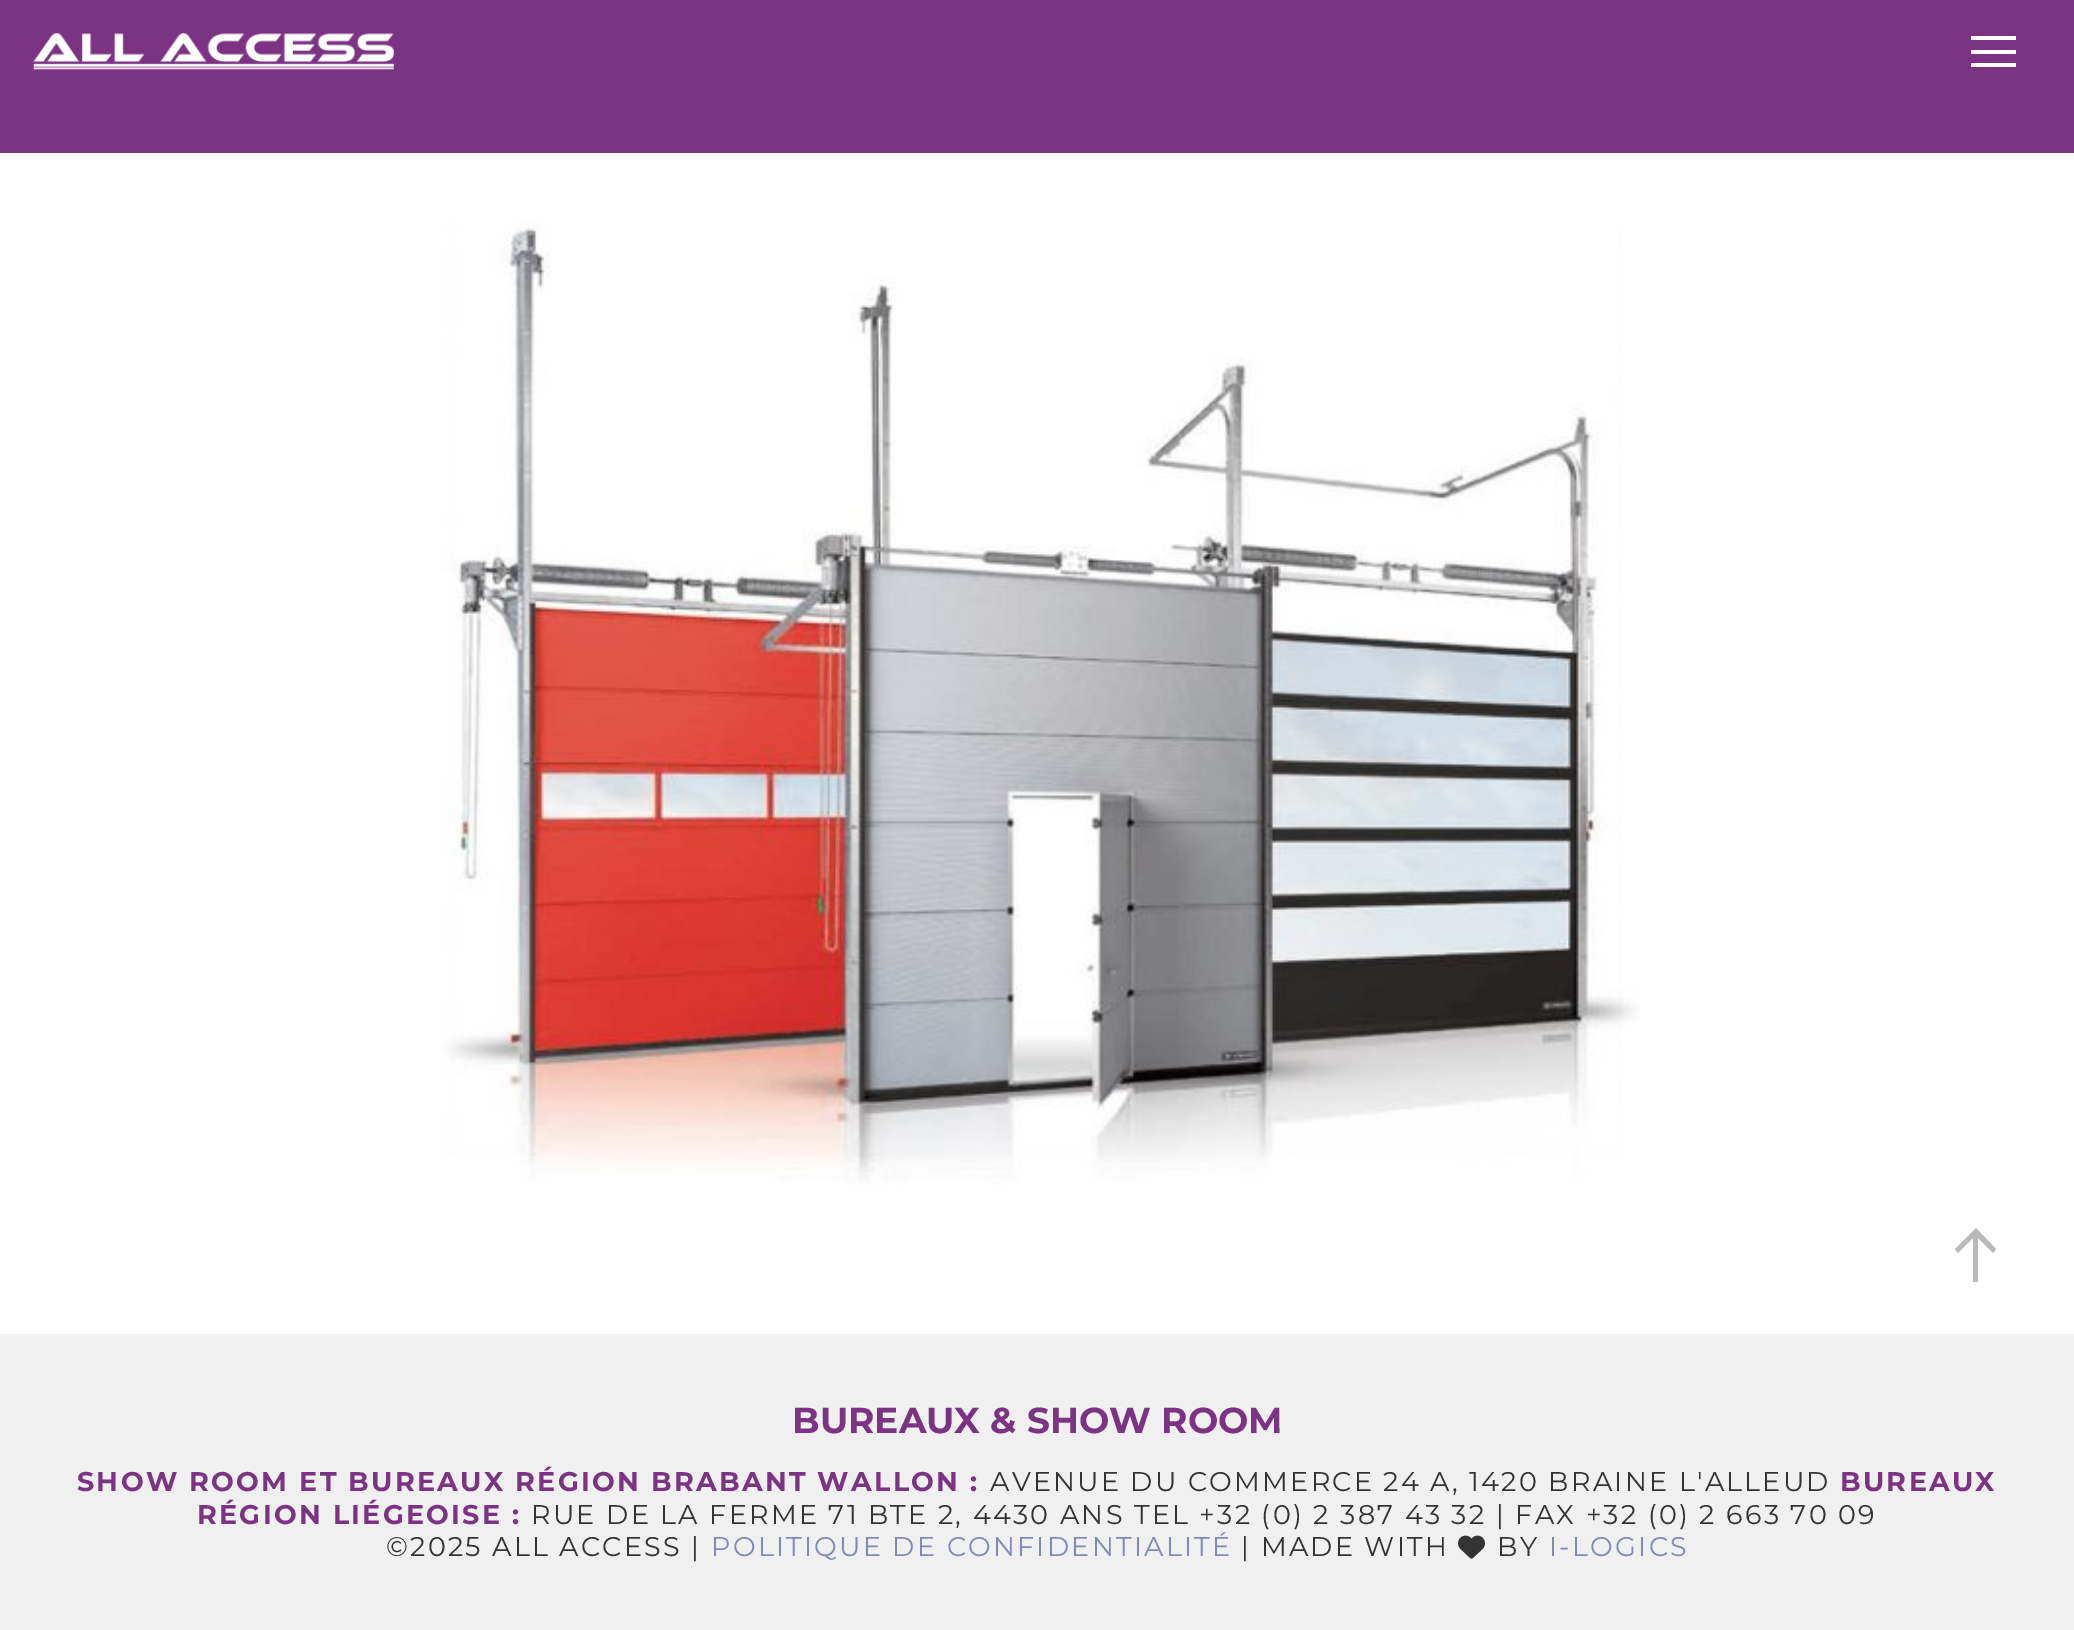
%!PS-Adobe-3.0
%%BoundingBox: 0 0 2074 1630
%%LanguageLevel: 3
%%Pages: 1
%%EndComments
%%BeginProlog
/setink { dup -16 bitshift 255 div exch dup -8 bitshift 255 and 255 div exch 255 and 255 div setrgbcolor } def
/usefont { [ exch dup neg 0 0 3 -1 roll 0 0 ] selectfont } def
/drawimage { 5 dict begin { /h /w /y /x /name } { exch def } forall
  gsave x y translate w h scale
  w h 8 [w 0 0 h 0 0] name (r) file false 3 colorimage grestore end } def
%%EndProlog
%%BeginSetup
<< /PageSize [2074 1630] >> setpagedevice
%%EndSetup
%%Page: 1 1
0 1630 translate 1 -1 scale
4 setmiterlimit
16#FFFFFF setink
0 0 2074 1630 rectfill
16#7C3384 setink
0 0 2074 153 rectfill
(img1.raw) 33 33 361 37 drawimage
16#FFFFFF setink
1971 50 moveto 2016 50 lineto 2016 54 lineto 1971 54 lineto closepath 1971 36 moveto 2016 36 lineto 2016 40 lineto 1971 40 lineto closepath 1971 63 moveto 2016 63 lineto 2016 67 lineto 1971 67 lineto closepath fill
(img2.raw) 441 220 1199 965 drawimage
16#BABABA setink
1978 1282 moveto 1978 1238 lineto 1993 1253 lineto 1996 1249 lineto 1976 1228 lineto 1955 1249 lineto 1958 1253 lineto 1973 1238 lineto 1973 1282 lineto closepath fill
16#F0F0F0 setink
0 1334 2074 296 rectfill
/Montserrat-Bold 36 usefont
16#7C3384 setink
792 1433 moveto (BUREAUX & SHOW ROOM) show
/Montserrat-Bold 27 usefont
77 1491 moveto 2.25 0 (SHOW ROOM ET BUREAUX RÉGION BRABANT WALLON :) ashow
/Montserrat-Regular 27 usefont
16#333333 setink
990 1491 moveto 2.25 0 (AVENUE DU COMMERCE 24 A, 1420 BRAINE L'ALLEUD) ashow
/Montserrat-Bold 27 usefont
16#7C3384 setink
1840 1491 moveto 2.25 0 (BUREAUX) ashow
197 1524 moveto 2.25 0 (RÉGION LIÉGEOISE :) ashow
/Montserrat-Regular 27 usefont
16#333333 setink
531 1524 moveto 2.25 0 (RUE DE LA FERME 71 BTE 2, 4430 ANS TEL +32 \(0\) 2 387 43 32 | FAX +32 \(0\) 2 663 70 09) ashow
386 1556 moveto 2.25 0 (©2025 ALL ACCESS |) ashow
16#8088BC setink
711 1556 moveto 2.25 0 (POLITIQUE DE CONFIDENTIALITÉ) ashow
16#333333 setink
1241 1556 moveto 2.25 0 (| MADE WITH) ashow
(img3.raw) 1458 1535 27 24 drawimage
1497 1556 moveto 2.25 0 (BY) ashow
16#8088BC setink
1549 1556 moveto 2.25 0 (I-LOGICS) ashow
showpage
%%EOF
